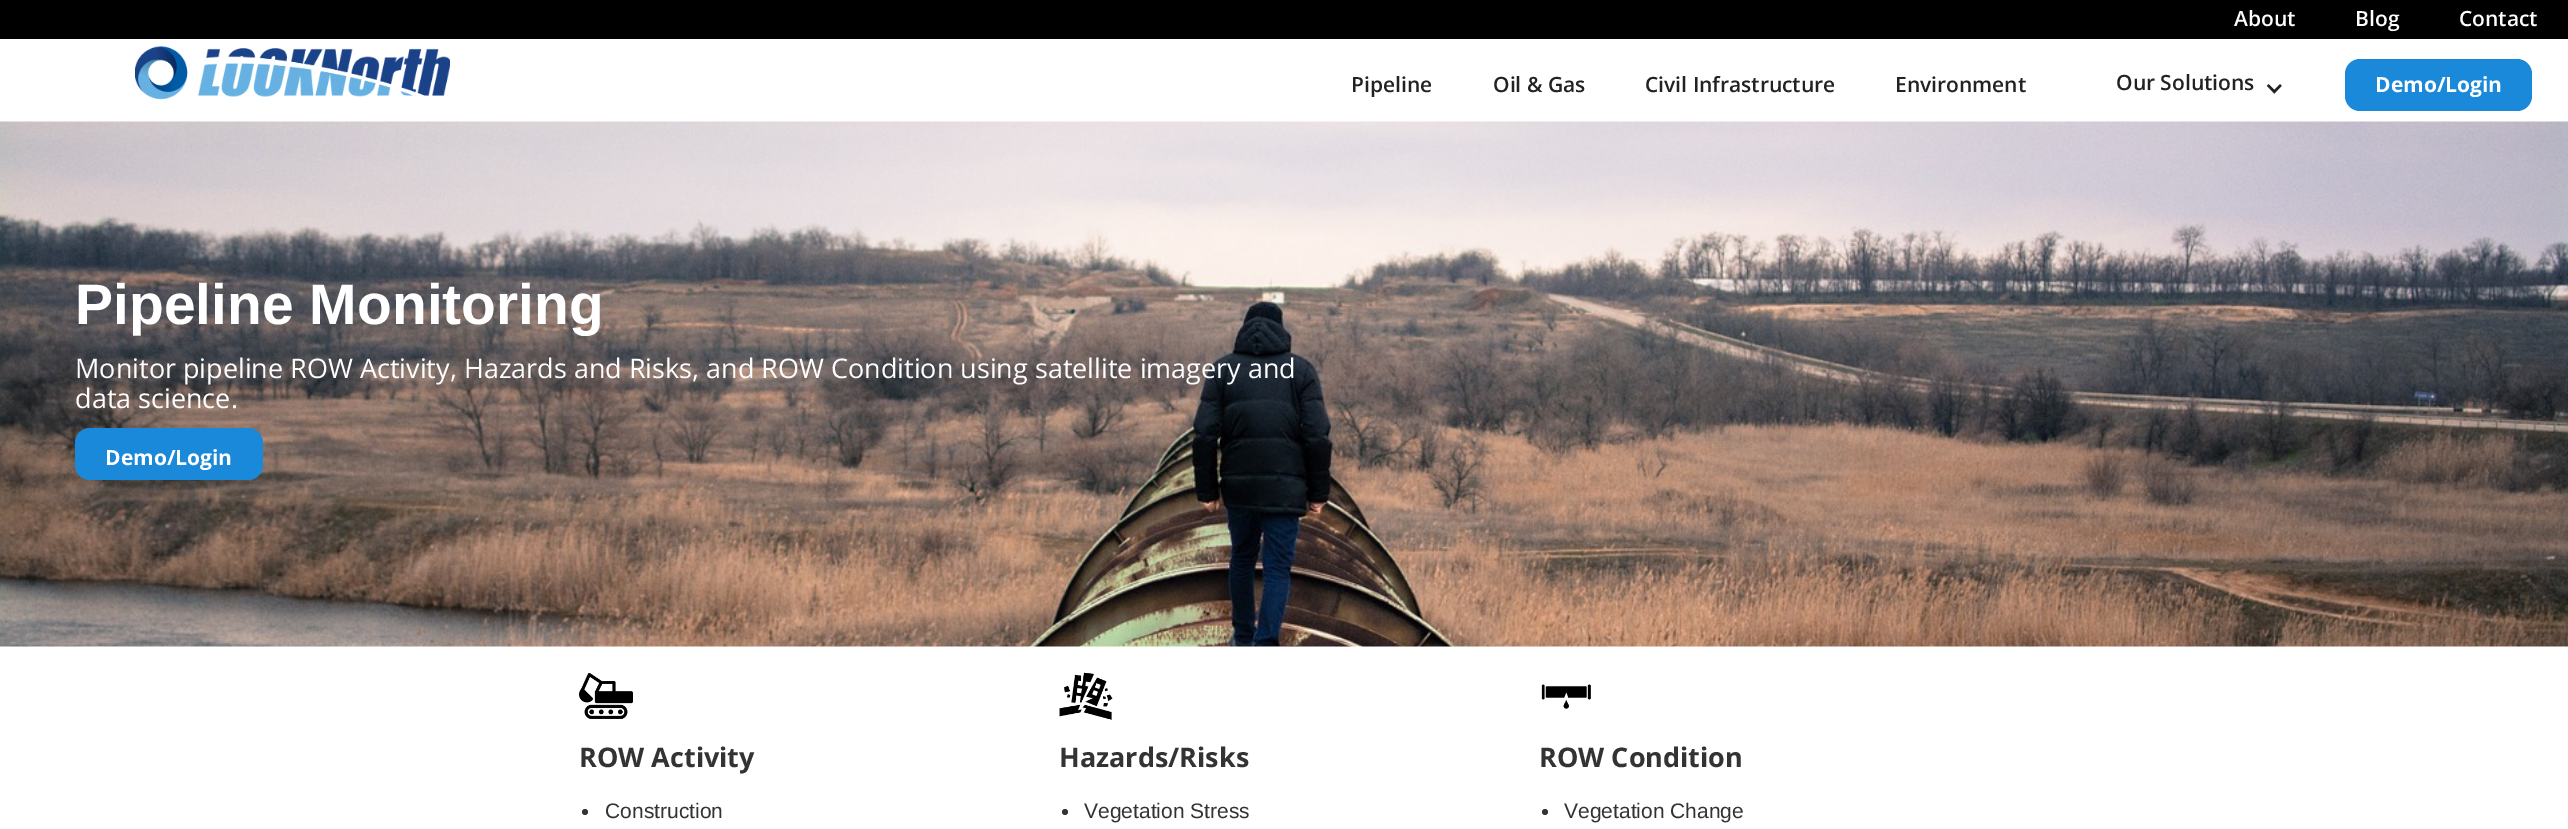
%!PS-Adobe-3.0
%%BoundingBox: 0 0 2568 829
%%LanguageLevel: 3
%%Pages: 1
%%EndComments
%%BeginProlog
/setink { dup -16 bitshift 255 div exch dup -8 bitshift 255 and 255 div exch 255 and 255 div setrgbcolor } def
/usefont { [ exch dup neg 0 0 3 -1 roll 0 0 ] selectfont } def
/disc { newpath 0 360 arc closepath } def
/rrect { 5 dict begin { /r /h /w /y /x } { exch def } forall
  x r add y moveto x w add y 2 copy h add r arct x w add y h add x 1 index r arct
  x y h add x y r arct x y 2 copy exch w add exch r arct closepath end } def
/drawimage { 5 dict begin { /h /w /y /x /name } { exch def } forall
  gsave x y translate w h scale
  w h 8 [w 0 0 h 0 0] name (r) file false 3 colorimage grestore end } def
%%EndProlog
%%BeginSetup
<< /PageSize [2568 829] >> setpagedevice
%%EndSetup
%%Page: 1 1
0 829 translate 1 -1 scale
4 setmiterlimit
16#FFFFFF setink
0 0 2568 829 rectfill
16#000000 setink
0 0 2568 39 rectfill
/OpenSans-SemiBold 21 usefont
16#FFFFFF setink
[
    [(About) 2234 26]
    [(Blog) 2355 26]
    [(Contact) 2459 26]
] { aload pop moveto show } forall
(img1.raw) 135 46 315 54 drawimage
16#222222 setink
[
    [(Pipeline) 1351 92]
    [(Oil & Gas) 1493 92]
    [(Civil Infrastructure) 1645 92]
    [(Environment) 1895 92]
    [(Our Solutions) 2116 90]
] { aload pop moveto show } forall
(img2.raw) 2266 84 16 10 drawimage
16#1B89DA setink
2345 59 187 52 15 rrect fill
/OpenSans-Bold 21 usefont
16#FFFFFF setink
2375 92 moveto (Demo/Login) show
(img3.raw) 0 121 2568 526 drawimage
/LiberationSans-Bold 57 usefont
75 324 moveto (Pipeline Monitoring) show
/OpenSans-Regular 27 usefont
75 378 moveto (Monitor pipeline ROW Activity, Hazards and Risks, and ROW Condition using satellite imagery and) show
75 408 moveto (data science.) show
16#1B89DA setink
75 428 188 52 15 rrect fill
/OpenSans-Bold 21 usefont
16#FFFFFF setink
105 465 moveto (Demo/Login) show
(img4.raw) 579 673 54 46 drawimage
/OpenSans-Bold 27 usefont
16#333333 setink
579 767 moveto (ROW Activity) show
585 812 3 disc fill
/LiberationSans-Regular 21 usefont
605 818 moveto (Construction) show
(img5.raw) 1059 672 54 48 drawimage
/OpenSans-Bold 27 usefont
1059 767 moveto (Hazards/Risks) show
1065 812 3 disc fill
/LiberationSans-Regular 21 usefont
1084 818 moveto (Vegetation Stress) show
(img6.raw) 1541 684 50 25 drawimage
/OpenSans-Bold 27 usefont
1539 767 moveto (ROW Condition) show
1545 812 3 disc fill
/LiberationSans-Regular 21 usefont
1564 818 moveto (Vegetation Change) show
showpage
%%EOF
